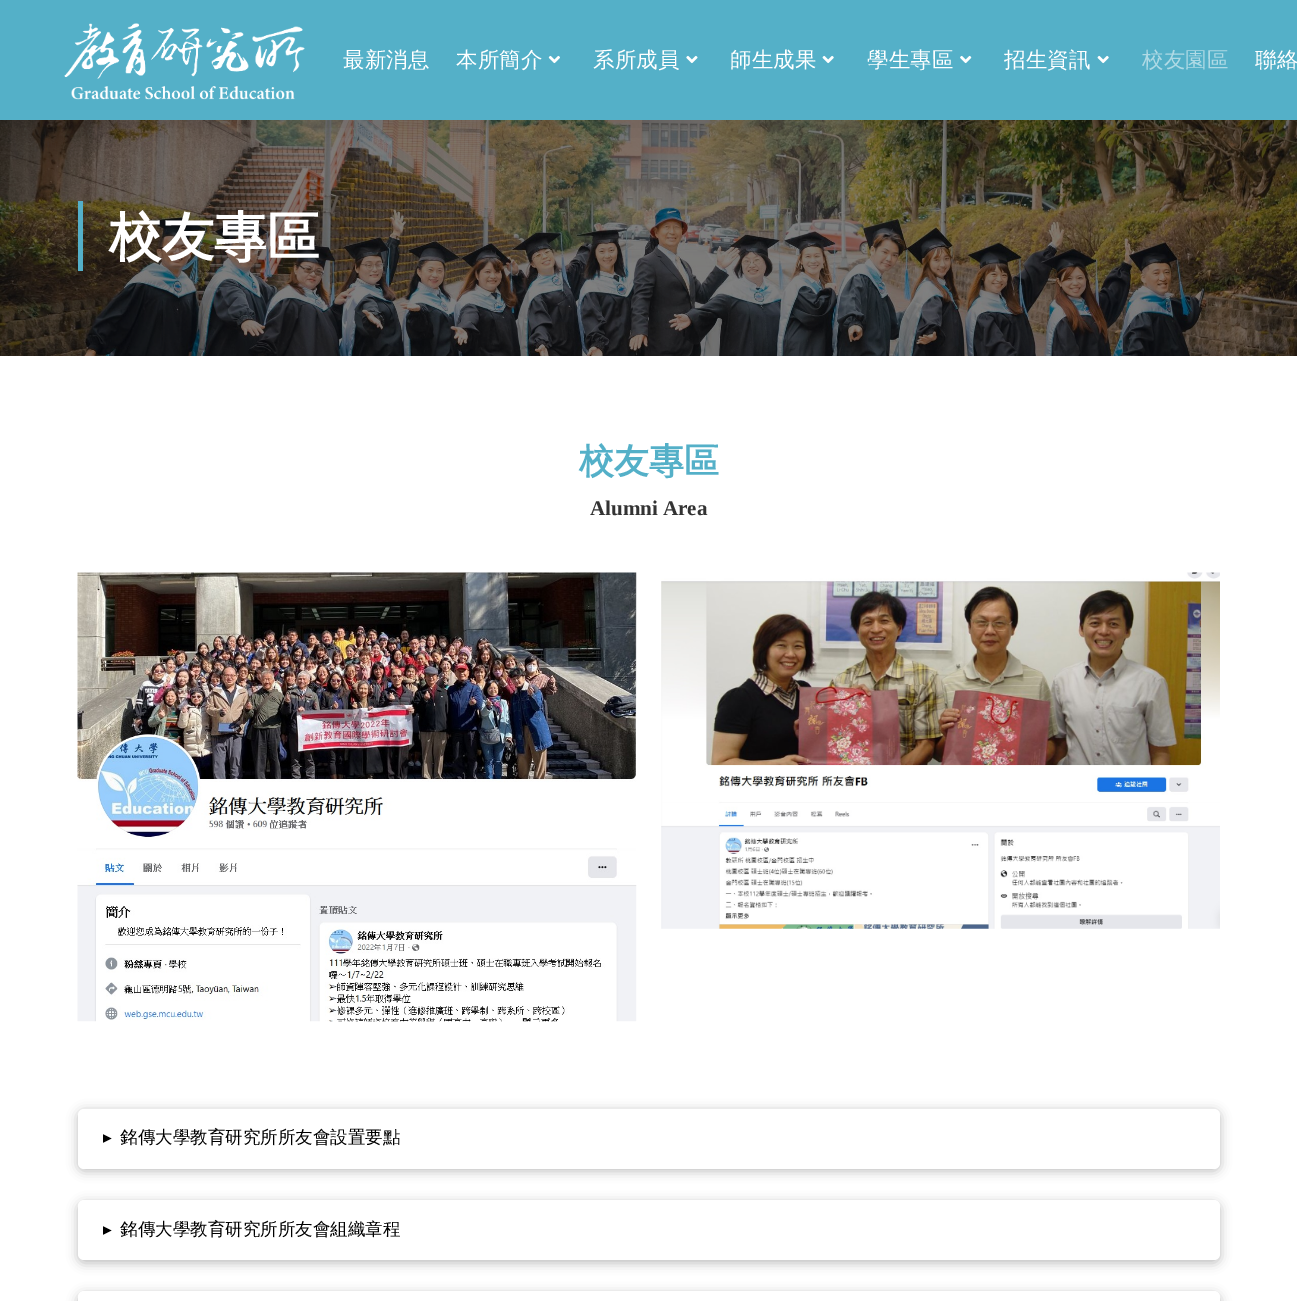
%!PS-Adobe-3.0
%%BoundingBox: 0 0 1297 1301
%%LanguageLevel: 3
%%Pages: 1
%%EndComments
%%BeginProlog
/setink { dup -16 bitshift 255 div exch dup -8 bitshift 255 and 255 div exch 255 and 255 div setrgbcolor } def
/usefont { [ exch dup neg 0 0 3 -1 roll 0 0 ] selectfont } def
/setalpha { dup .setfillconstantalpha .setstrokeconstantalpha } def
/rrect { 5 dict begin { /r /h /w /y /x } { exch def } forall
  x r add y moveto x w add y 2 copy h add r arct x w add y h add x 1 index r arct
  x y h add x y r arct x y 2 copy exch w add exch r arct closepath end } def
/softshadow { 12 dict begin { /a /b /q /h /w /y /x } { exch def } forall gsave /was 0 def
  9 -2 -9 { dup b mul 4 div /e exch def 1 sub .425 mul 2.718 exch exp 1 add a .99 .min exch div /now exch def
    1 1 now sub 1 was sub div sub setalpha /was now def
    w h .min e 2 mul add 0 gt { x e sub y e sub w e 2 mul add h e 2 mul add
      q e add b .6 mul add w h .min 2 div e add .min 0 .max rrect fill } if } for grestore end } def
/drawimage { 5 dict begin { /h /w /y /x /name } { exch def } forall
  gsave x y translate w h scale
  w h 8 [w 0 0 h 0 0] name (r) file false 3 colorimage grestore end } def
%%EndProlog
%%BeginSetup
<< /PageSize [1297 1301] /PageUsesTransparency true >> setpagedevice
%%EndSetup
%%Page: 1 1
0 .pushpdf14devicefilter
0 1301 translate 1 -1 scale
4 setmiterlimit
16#FFFFFF setink
0 0 1297 1301 rectfill
(img6.raw) 0 120 1297 236 drawimage
16#000000 setink
0 3 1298 120 0 20 0.15 softshadow
16#54B0C8 setink
0 0 1297 120 rectfill
(img1.raw) 64 23 241 77 drawimage
/WenQuanYiZenHei-Medium 21.5 usefont
16#FFFFFF setink
343 67 moveto (最新消息) show
456 67 moveto (本所簡介) show
(img2.raw) 548 55 12 9 drawimage
593 67 moveto (系所成員) show
(img3.raw) 686 55 12 9 drawimage
730 67 moveto (師生成果) show
(img4.raw) 822 55 12 9 drawimage
867 67 moveto (學生專區) show
(img5.raw) 960 55 12 9 drawimage
1004 67 moveto (招生資訊) show
(img4.raw) 1097 55 12 9 drawimage
16#AFDAE5 setink
1142 67 moveto (校友園區) show
16#FFFFFF setink
1255 67 moveto (聯絡) show
16#54B0C8 setink
78 201 5 70 rectfill
/WenQuanYiZenHei-Bold 52.5 usefont
16#FFFFFF setink
109 255 moveto (校友專區) show
/WenQuanYiZenHei-Bold 35 usefont
16#54B0C8 setink
579 473 moveto (校友專區) show
/LiberationSerif-Bold 21 usefont
16#333333 setink
590 515 moveto (Alumni Area) show
(img7.raw) 77 572 560 450 drawimage
(img8.raw) 661 572 559 357 drawimage
16#000000 setink
78 1111 1142 60 6 5.5 0.25 softshadow
16#FFFFFF setink
78 1109 1142 60 6 rrect fill
/DejaVuSans-Regular 17.5 usefont
16#000000 setink
103 1143 moveto (▸) show
/WenQuanYiZenHei-Medium 17.5 usefont
120 1143 moveto (銘傳大學教育研究所所友會設置要點) show
78 1203 1142 60 6 5.5 0.25 softshadow
16#FFFFFF setink
78 1200 1142 60 6 rrect fill
/DejaVuSans-Regular 17.5 usefont
16#000000 setink
103 1235 moveto (▸) show
/WenQuanYiZenHei-Medium 17.5 usefont
120 1235 moveto (銘傳大學教育研究所所友會組織章程) show
78 1294 1142 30 6 5.5 0.25 softshadow
16#FFFFFF setink
78 1291 1142 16 6 rrect fill
.poppdf14devicefilter showpage
%%EOF
